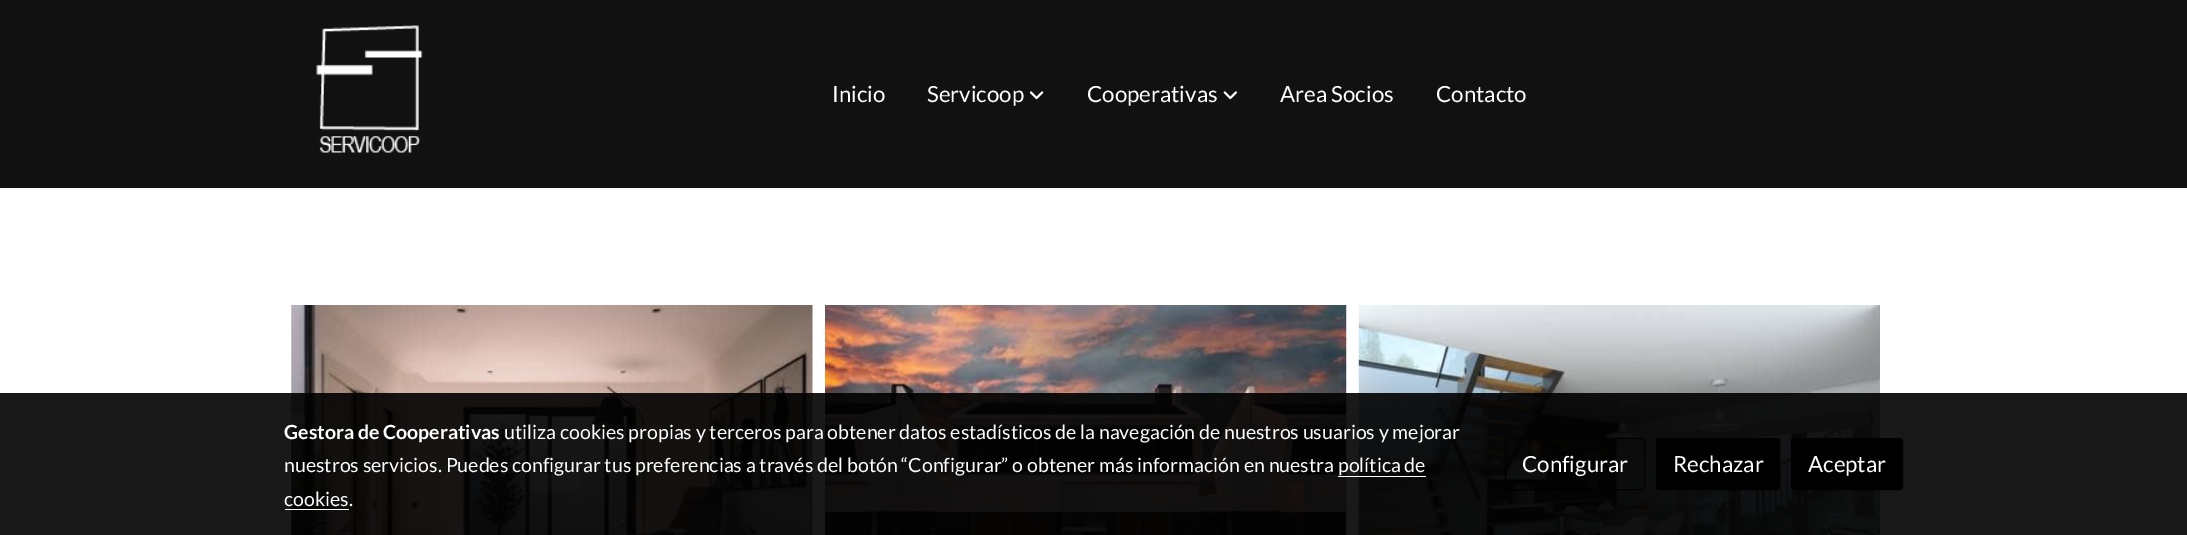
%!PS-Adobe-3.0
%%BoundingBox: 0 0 2187 535
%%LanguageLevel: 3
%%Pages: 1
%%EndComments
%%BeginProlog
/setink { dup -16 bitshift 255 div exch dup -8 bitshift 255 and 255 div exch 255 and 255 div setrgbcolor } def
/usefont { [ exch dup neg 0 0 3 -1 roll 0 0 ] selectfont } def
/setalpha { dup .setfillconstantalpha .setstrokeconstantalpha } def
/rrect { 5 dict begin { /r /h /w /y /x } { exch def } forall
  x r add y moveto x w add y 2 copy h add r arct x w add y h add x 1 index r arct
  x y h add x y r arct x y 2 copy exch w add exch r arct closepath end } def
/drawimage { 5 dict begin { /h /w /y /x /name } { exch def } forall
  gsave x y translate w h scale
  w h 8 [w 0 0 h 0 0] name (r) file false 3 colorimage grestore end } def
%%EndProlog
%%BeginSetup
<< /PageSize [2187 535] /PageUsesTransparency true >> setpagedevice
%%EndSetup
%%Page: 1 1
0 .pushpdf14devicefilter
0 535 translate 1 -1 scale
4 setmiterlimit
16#FFFFFF setink
0 0 2187 535 rectfill
16#111111 setink
0 0 2187 188 rectfill
(img1.raw) 316 25 107 128 drawimage
/Lato-Regular 22.25 usefont
16#FFFFFF setink
832 102 moveto (Inicio) show
927 102 moveto (Servicoop) show
(img2.raw) 1029 91 15 9 drawimage
1087 102 moveto (Cooperativas) show
(img3.raw) 1223 91 14 9 drawimage
1280 102 moveto (Area Socios) show
1436 102 moveto (Contacto) show
(img4.raw) 291 305 522 230 drawimage
(img5.raw) 825 305 522 230 drawimage
(img6.raw) 1358 305 522 230 drawimage
0.9 setalpha
16#000000 setink
0 393 2187 142 rectfill
/Lato-Bold 19.52 usefont
1 setalpha
16#FFFFFF setink
284 439 moveto (Gestora de Cooperativas) show
/Lato-Regular 19.52 usefont
504 439 moveto (utiliza cookies propias y terceros para obtener datos estadísticos de la navegación de nuestros usuarios y mejorar) show
284 472 moveto (nuestros servicios. Puedes configurar tus preferencias a través del botón “Configurar” o obtener más información en nuestra política de) show
1338 476 88 1 rectfill
284 506 moveto (cookies.) show
285 509 64 1 rectfill
16#000000 setink
1505.5 438.5 139 51 2.5 rrect stroke
/Lato-Regular 22.25 usefont
16#FFFFFF setink
1522 472 moveto (Configurar) show
16#000000 setink
1656.5 438.5 123 51 2.5 rrect gsave fill grestore
stroke
16#FFFFFF setink
1673 472 moveto (Rechazar) show
16#000000 setink
1791.5 438.5 111 51 2.5 rrect gsave fill grestore
stroke
16#FFFFFF setink
1808 472 moveto (Aceptar) show
.poppdf14devicefilter showpage
%%EOF
